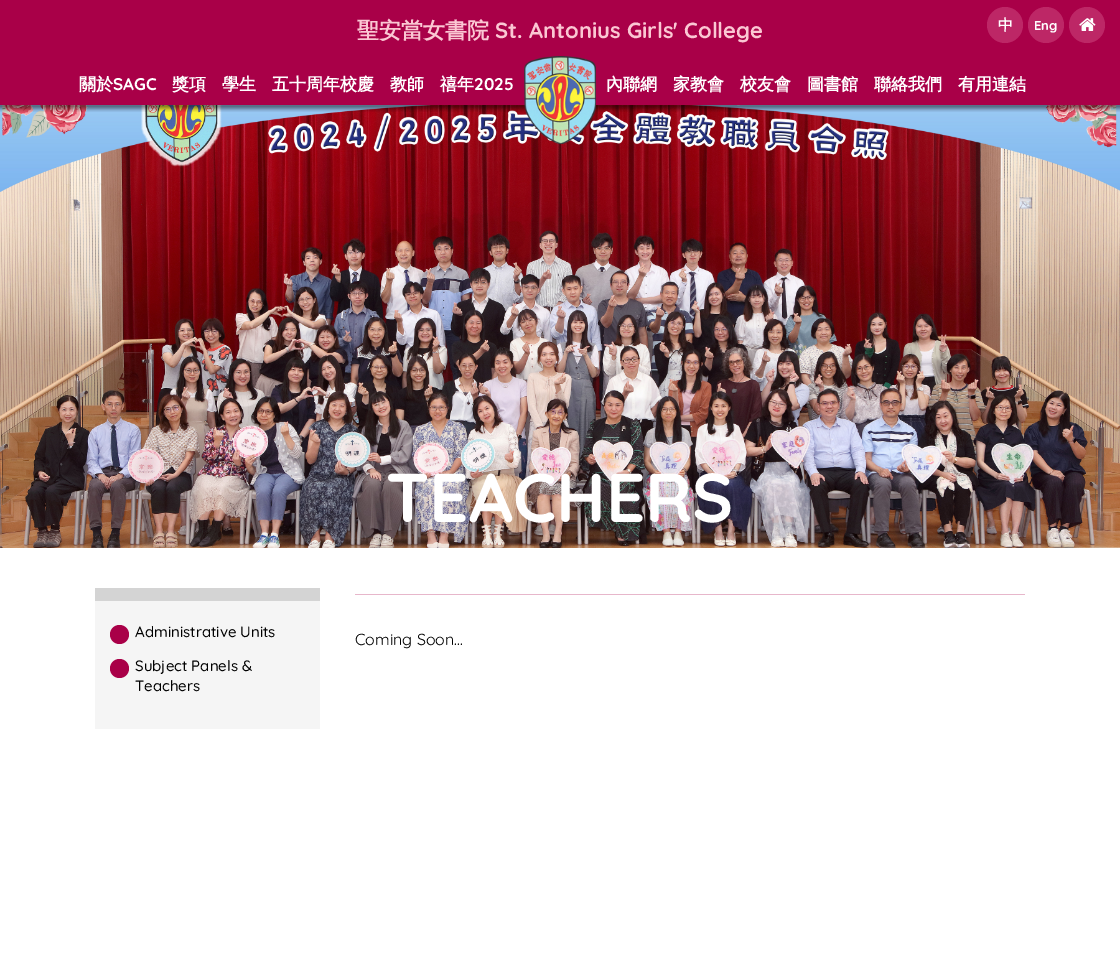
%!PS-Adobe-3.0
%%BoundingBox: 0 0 1120 980
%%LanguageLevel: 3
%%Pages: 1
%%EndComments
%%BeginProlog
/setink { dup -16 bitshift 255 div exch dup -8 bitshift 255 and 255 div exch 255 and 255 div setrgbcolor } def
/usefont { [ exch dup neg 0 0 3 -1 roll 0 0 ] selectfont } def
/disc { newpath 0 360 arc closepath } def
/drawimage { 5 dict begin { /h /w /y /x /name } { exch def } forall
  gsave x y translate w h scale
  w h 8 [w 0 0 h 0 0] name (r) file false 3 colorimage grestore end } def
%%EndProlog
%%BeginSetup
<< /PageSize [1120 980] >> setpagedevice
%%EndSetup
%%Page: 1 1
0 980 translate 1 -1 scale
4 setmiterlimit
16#FFFFFF setink
0 0 1120 980 rectfill
16#A90048 setink
0 0 1120 105 rectfill
/WenQuanYiZenHei-Bold 22 usefont
16#FBC7D3 setink
357 38 moveto (聖安當女書院) show
/Quicksand-Bold 22 usefont
495 38 moveto (St. Antonius Girls' College) show
16#BD2766 setink
1005 25 18 disc fill
/WenQuanYiZenHei-Bold 15 usefont
16#FFFFFF setink
998 30 moveto (中) show
16#BD2766 setink
1046 25 18 disc fill
/Quicksand-Bold 13 usefont
16#FFFFFF setink
1034 30 moveto (Eng) show
16#BD2766 setink
1087 25 18 disc fill
(img1.raw) 1079 18 17 13 drawimage
(img4.raw) 0 105 1120 443 drawimage
(img3.raw) 0 105 1120 7 drawimage
(img2.raw) 524 56 72 88 drawimage
/WenQuanYiZenHei-Bold 17 usefont
16#FFFFFF setink
79 90 moveto (關於) show
/Quicksand-Bold 17 usefont
113 90 moveto (SAGC) show
/WenQuanYiZenHei-Bold 17 usefont
[
    [(獎項) 172 90]
    [(學生) 222 90]
    [(五十周年校慶) 272 90]
    [(教師) 390 90]
    [(禧年) 440 90]
] { aload pop moveto show } forall
/Quicksand-Bold 17 usefont
474 90 moveto (2025) show
/WenQuanYiZenHei-Bold 17 usefont
[
    [(內聯網) 606 90]
    [(家教會) 673 90]
    [(校友會) 740 90]
    [(圖書館) 807 90]
    [(聯絡我們) 874 90]
    [(有用連結) 958 90]
] { aload pop moveto show } forall
/Quicksand-Bold 69 usefont
386 522 moveto (TEACHERS) show
16#F5F5F5 setink
95 601 225 128 rectfill
16#D4D4D4 setink
95 588 225 13 rectfill
16#A90048 setink
119.5 634.5 9.5 disc fill
/Quicksand-Medium 15 usefont
16#000000 setink
135 637 moveto (Administrative Units) show
16#A90048 setink
119.5 668.5 9.5 disc fill
16#000000 setink
135 671 moveto (Subject Panels &) show
135 691 moveto (Teachers) show
16#E7B7CB setink
355 594 670 1 rectfill
/Quicksand-Regular 16 usefont
16#000000 setink
355 645 moveto (Coming Soon...) show
showpage
%%EOF
